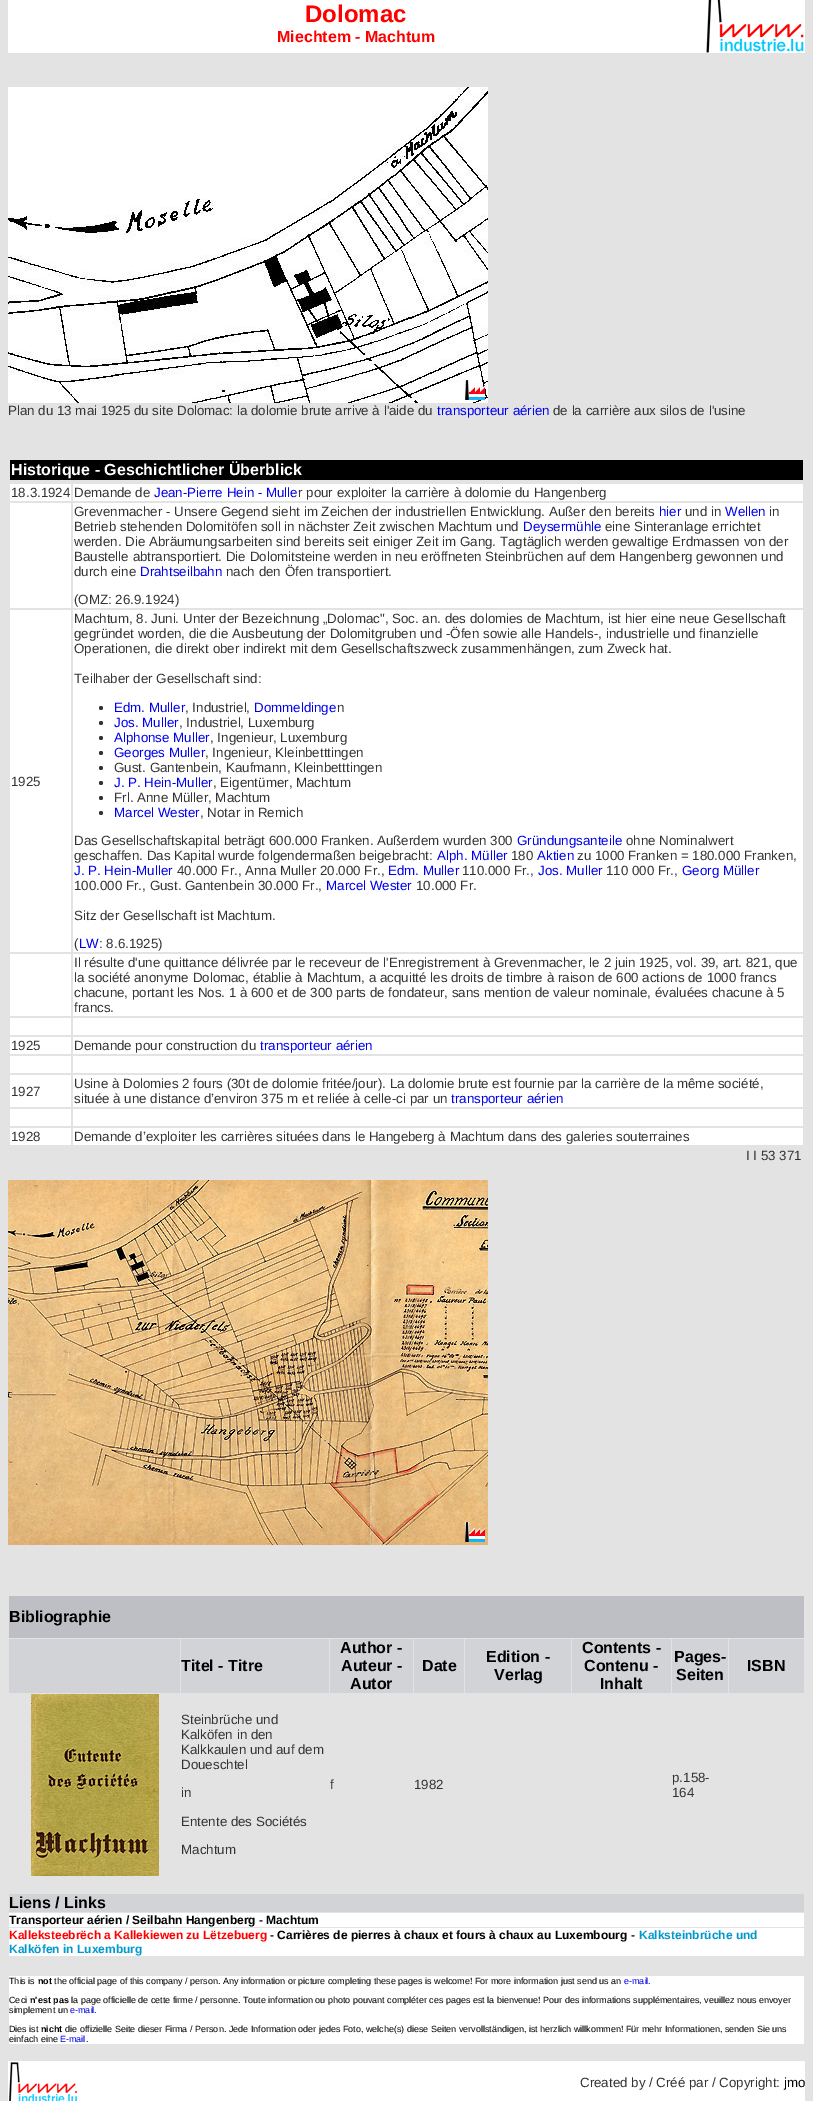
%!PS-Adobe-3.0
%%BoundingBox: 0 0 813 2101
%%LanguageLevel: 3
%%Pages: 1
%%EndComments
%%BeginProlog
/setink { dup -16 bitshift 255 div exch dup -8 bitshift 255 and 255 div exch 255 and 255 div setrgbcolor } def
/usefont { [ exch dup neg 0 0 3 -1 roll 0 0 ] selectfont } def
/disc { newpath 0 360 arc closepath } def
/drawimage { 5 dict begin { /h /w /y /x /name } { exch def } forall
  gsave x y translate w h scale
  w h 8 [w 0 0 h 0 0] name (r) file false 3 colorimage grestore end } def
%%EndProlog
%%BeginSetup
<< /PageSize [813 2101] >> setpagedevice
%%EndSetup
%%Page: 1 1
0 2101 translate 1 -1 scale
4 setmiterlimit
16#E3E3E3 setink
0 0 813 2101 rectfill
16#FFFFFF setink
8 0 797 53 rectfill
/LiberationSans-Bold 24 usefont
16#FF0000 setink
305 22 moveto (Dolomac) show
/LiberationSans-Bold 16 usefont
277 42 moveto (Miechtem - Machtum) show
(img1.raw) 706 0 98 53 drawimage
(img2.raw) 8 87 480 316 drawimage
/LiberationSans-Regular 13.33 usefont
16#333333 setink
8 415 moveto (Plan du 13 mai 1925 du site Dolomac: la dolomie brute arrive à l'aide du) show
16#0000EE setink
437 415 moveto (transporteur aérien) show
16#333333 setink
553 415 moveto (de la carrière aux silos de l'usine) show
16#000000 setink
10 460 793 20 rectfill
/LiberationSans-Bold 16 usefont
16#FFFFFF setink
11 475 moveto (Historique - Geschichtlicher Überblick) show
10 484 61 17 rectfill
73 484 730 17 rectfill
/LiberationSans-Regular 13.33 usefont
16#333333 setink
11 497 moveto (18.3.1924 Demande de) show
16#0000EE setink
154 497 moveto (Jean-Pierre Hein - Mulle) show
16#333333 setink
298 497 moveto (r pour exploiter la carrière à dolomie du Hangenberg) show
16#FFFFFF setink
10 503 61 105 rectfill
73 503 730 105 rectfill
16#333333 setink
74 516 moveto (Grevenmacher - Unsere Gegend sieht im Zeichen der industriellen Entwicklung. Außer den bereits) show
16#0000EE setink
659 516 moveto (hier) show
16#333333 setink
685 516 moveto (und in) show
16#0000EE setink
725 516 moveto (Wellen) show
16#333333 setink
769 516 moveto (in) show
74 531 moveto (Betrieb stehenden Dolomitöfen soll in nächster Zeit zwischen Machtum und) show
16#0000EE setink
523 531 moveto (Deysermühle) show
16#333333 setink
[
    [(eine Sinteranlage errichtet) 605 531]
    [(werden. Die Abräumungsarbeiten sind bereits seit einiger Zeit im Gang. Tagtäglich werden gewaltige Erdmassen von der) 74 546]
    [(Baustelle abtransportiert. Die Dolomitsteine werden in neu eröffneten Steinbrüchen auf dem Hangenberg gewonnen und) 74 561]
    [(durch eine) 74 576]
] { aload pop moveto show } forall
16#0000EE setink
140 576 moveto (Drahtseilbahn) show
16#333333 setink
226 576 moveto (nach den Öfen transportiert.) show
74 604 moveto (\(OMZ: 26.9.1924\)) show
16#FFFFFF setink
10 610 61 342 rectfill
16#333333 setink
11 786 moveto (1925) show
16#FFFFFF setink
73 610 730 342 rectfill
16#333333 setink
[
    [(Machtum, 8. Juni. Unter der Bezeichnung „Dolomac", Soc. an. des dolomies de Machtum, ist hier eine neue Gesellschaft) 74 623]
    [(gegründet worden, die die Ausbeutung der Dolomitgruben und -Öfen sowie alle Handels-, industrielle und finanzielle) 74 638]
    [(Operationen, die direkt ober indirekt mit dem Gesellschaftszweck zusammenhängen, zum Zweck hat.) 74 653]
    [(Teilhaber der Gesellschaft sind:) 74 683]
] { aload pop moveto show } forall
101 708 2 disc fill
16#0000EE setink
114 712 moveto (Edm. Muller) show
16#333333 setink
185 712 moveto (, Industriel,) show
16#0000EE setink
254 712 moveto (Dommeldinge) show
16#333333 setink
337 712 moveto (n) show
101 723 2 disc fill
16#0000EE setink
114 727 moveto (Jos. Muller) show
16#333333 setink
179 727 moveto (, Industriel, Luxemburg) show
101 738 2 disc fill
16#0000EE setink
114 742 moveto (Alphonse Muller) show
16#333333 setink
210 742 moveto (, Ingenieur, Luxemburg) show
101 753 2 disc fill
16#0000EE setink
114 757 moveto (Georges Muller) show
16#333333 setink
205 757 moveto (, Ingenieur, Kleinbetttingen) show
101 768 2 disc fill
114 772 moveto (Gust. Gantenbein, Kaufmann, Kleinbetttingen) show
101 783 2 disc fill
16#0000EE setink
114 787 moveto (J. P. Hein-Muller) show
16#333333 setink
213 787 moveto (, Eigentümer, Machtum) show
101 798 2 disc fill
114 802 moveto (Frl. Anne Müller, Machtum) show
101 813 2 disc fill
16#0000EE setink
114 817 moveto (Marcel Wester) show
16#333333 setink
200 817 moveto (, Notar in Remich) show
74 845 moveto (Das Gesellschaftskapital beträgt 600.000 Franken. Außerdem wurden 300) show
16#0000EE setink
517 845 moveto (Gründungsanteile) show
16#333333 setink
626 845 moveto (ohne Nominalwert) show
74 860 moveto (geschaffen. Das Kapital wurde folgendermaßen beigebracht:) show
16#0000EE setink
437 860 moveto (Alph. Müller) show
16#333333 setink
511 860 moveto (180) show
16#0000EE setink
537 860 moveto (Aktien) show
16#333333 setink
577 860 moveto (zu 1000 Franken = 180.000 Franken,) show
16#0000EE setink
74 875 moveto (J. P. Hein-Muller) show
16#333333 setink
177 875 moveto (40.000 Fr., Anna Muller 20.000 Fr.,) show
16#0000EE setink
388 875 moveto (Edm. Muller) show
16#333333 setink
462 875 moveto (110.000 Fr.,) show
16#0000EE setink
538 875 moveto (Jos. Muller) show
16#333333 setink
606 875 moveto (110 000 Fr.,) show
16#0000EE setink
682 875 moveto (Georg Müller) show
16#333333 setink
74 890 moveto (100.000 Fr., Gust. Gantenbein 30.000 Fr.,) show
16#0000EE setink
326 890 moveto (Marcel Wester) show
16#333333 setink
[
    [(10.000 Fr.) 416 890]
    [(Sitz der Gesellschaft ist Machtum.) 74 920]
    [(\() 74 948]
] { aload pop moveto show } forall
16#0000EE setink
79 948 moveto (LW) show
16#333333 setink
99 948 moveto (: 8.6.1925\)) show
16#FFFFFF setink
10 954 61 62 rectfill
73 954 730 62 rectfill
16#333333 setink
[
    [(Il résulte d'une quittance délivrée par le receveur de l'Enregistrement à Grevenmacher, le 2 juin 1925, vol. 39, art. 821, que) 74 967]
    [(la société anonyme Dolomac, établie à Machtum, a acquitté les droits de timbre à raison de 600 actions de 1000 francs) 74 982]
    [(chacune, portant les Nos. 1 à 600 et de 300 parts de fondateur, sans mention de valeur nominale, évaluées chacune à 5) 74 997]
    [(francs.) 74 1012]
] { aload pop moveto show } forall
[
    [10 1018 61 17 16#FFFFFF]
    [73 1018 730 17 16#FFFFFF]
    [10 1037 61 17 16#FFFFFF]
] { aload pop setink rectfill } forall
16#333333 setink
11 1050 moveto (1925) show
16#FFFFFF setink
73 1037 730 17 rectfill
16#333333 setink
74 1050 moveto (Demande pour construction du) show
16#0000EE setink
260 1050 moveto (transporteur aérien) show
[
    [10 1056 61 17 16#FFFFFF]
    [73 1056 730 17 16#FFFFFF]
    [10 1075 61 32 16#FFFFFF]
] { aload pop setink rectfill } forall
16#333333 setink
11 1096 moveto (1927) show
16#FFFFFF setink
73 1075 730 32 rectfill
16#333333 setink
74 1088 moveto (Usine à Dolomies 2 fours \(30t de dolomie fritée/jour\). La dolomie brute est fournie par la carrière de la même société,) show
74 1103 moveto (située à une distance d’environ 375 m et reliée à celle-ci par un) show
16#0000EE setink
451 1103 moveto (transporteur aérien) show
[
    [10 1109 61 17 16#FFFFFF]
    [73 1109 730 17 16#FFFFFF]
    [10 1128 61 17 16#FFFFFF]
] { aload pop setink rectfill } forall
16#333333 setink
11 1141 moveto (1928) show
16#FFFFFF setink
73 1128 730 17 rectfill
16#333333 setink
74 1141 moveto (Demande d’exploiter les carrières situées dans le Hangeberg à Machtum dans des galeries souterraines) show
746 1160 moveto (I I 53 371) show
(img3.raw) 8 1180 480 365 drawimage
16#BDBFC4 setink
9 1596 795 42 rectfill
/LiberationSans-Bold 16 usefont
16#000000 setink
9 1622 moveto (Bibliographie) show
16#D2D3D7 setink
9 1639 171 54 rectfill
181 1639 148 54 rectfill
16#000000 setink
181 1671 moveto (Titel - Titre) show
16#D2D3D7 setink
330 1639 83 54 rectfill
16#000000 setink
[
    [(Author -) 340 1653]
    [(Auteur -) 341 1671]
    [(Autor) 350 1689]
] { aload pop moveto show } forall
16#D2D3D7 setink
414 1639 50 54 rectfill
16#000000 setink
422 1671 moveto (Date) show
16#D2D3D7 setink
465 1639 106 54 rectfill
16#000000 setink
486 1662 moveto (Edition -) show
494 1680 moveto (Verlag) show
16#D2D3D7 setink
572 1639 99 54 rectfill
16#000000 setink
[
    [(Contents -) 582 1653]
    [(Contenu -) 584 1671]
    [(Inhalt) 600 1689]
] { aload pop moveto show } forall
16#D2D3D7 setink
672 1639 56 54 rectfill
16#000000 setink
674 1662 moveto (Pages-) show
676 1680 moveto (Seiten) show
16#D2D3D7 setink
729 1639 75 54 rectfill
16#000000 setink
747 1671 moveto (ISBN) show
(img4.raw) 31 1694 128 182 drawimage
/LiberationSans-Regular 13.33 usefont
16#333333 setink
[
    [(Steinbrüche und) 181 1724]
    [(Kalköfen in den) 181 1739]
    [(Kalkkaulen und auf dem) 181 1754]
    [(Doueschtel) 181 1769]
    [(in) 181 1797]
    [(Entente des Sociétés) 181 1826]
    [(Machtum) 181 1854]
    [(f) 330 1789]
    [(1982) 414 1789]
    [(p.158-) 672 1782]
    [(164) 672 1797]
] { aload pop moveto show } forall
16#D2D3D7 setink
9 1894 795 18 rectfill
/LiberationSans-Bold 16 usefont
16#000000 setink
9 1908 moveto (Liens / Links) show
16#FFFFFF setink
9 1913 795 14 rectfill
/LiberationSans-Bold 12 usefont
16#000000 setink
9 1924 moveto (Transporteur aérien / Seilbahn Hangenberg - Machtum) show
16#FFFFFF setink
9 1928 795 28 rectfill
16#FF0000 setink
9 1939 moveto (Kalleksteebrëch a Kallekiewen zu Lëtzebuerg) show
16#000000 setink
270 1939 moveto (- Carrières de pierres à chaux et fours à chaux au Luxembourg -) show
16#0099CC setink
639 1939 moveto (Kalksteinbrüche und) show
9 1953 moveto (Kalköfen in Luxemburg) show
16#FFFFFF setink
9 1976 795 68 rectfill
/LiberationSans-Regular 9 usefont
16#000000 setink
9 1984 moveto (This is) show
/LiberationSans-Bold 9 usefont
38 1984 moveto (not) show
/LiberationSans-Regular 9 usefont
54 1984 moveto (the official page of this company / person. Any information or picture completing these pages is welcome! For more information just send us an) show
16#0000EE setink
624 1984 moveto (e-mail.) show
16#000000 setink
9 2003 moveto (Ceci) show
/LiberationSans-Bold 9 usefont
30 2003 moveto (n'est pas) show
/LiberationSans-Regular 9 usefont
71 2003 moveto (la page officielle de cette firme / personne. Toute information ou photo pouvant compléter ces pages est la bienvenue! Pour des informations supplémentaires, veuillez nous envoyer) show
9 2013 moveto (simplement un) show
16#0000EE setink
70 2013 moveto (e-mail.) show
16#000000 setink
9 2032 moveto (Dies ist) show
/LiberationSans-Bold 9 usefont
41 2032 moveto (nicht) show
/LiberationSans-Regular 9 usefont
65 2032 moveto (die offizielle Seite dieser Firma / Person. Jede Information oder jedes Foto, welche\(s\) diese Seiten vervollständigen, ist herzlich willkommen! Für mehr Informationen, senden Sie uns) show
9 2042 moveto (einfach eine) show
16#0000EE setink
60 2042 moveto (E-mail) show
16#000000 setink
86 2042 moveto (.) show
16#FFFFFF setink
8 2061 797 40 rectfill
(img5.raw) 8 2062 70 39 drawimage
/LiberationSans-Regular 13.33 usefont
16#333333 setink
580 2087 moveto (Created by / Créé par / Copyright:) show
16#000000 setink
784 2087 moveto (jmo) show
showpage
%%EOF
